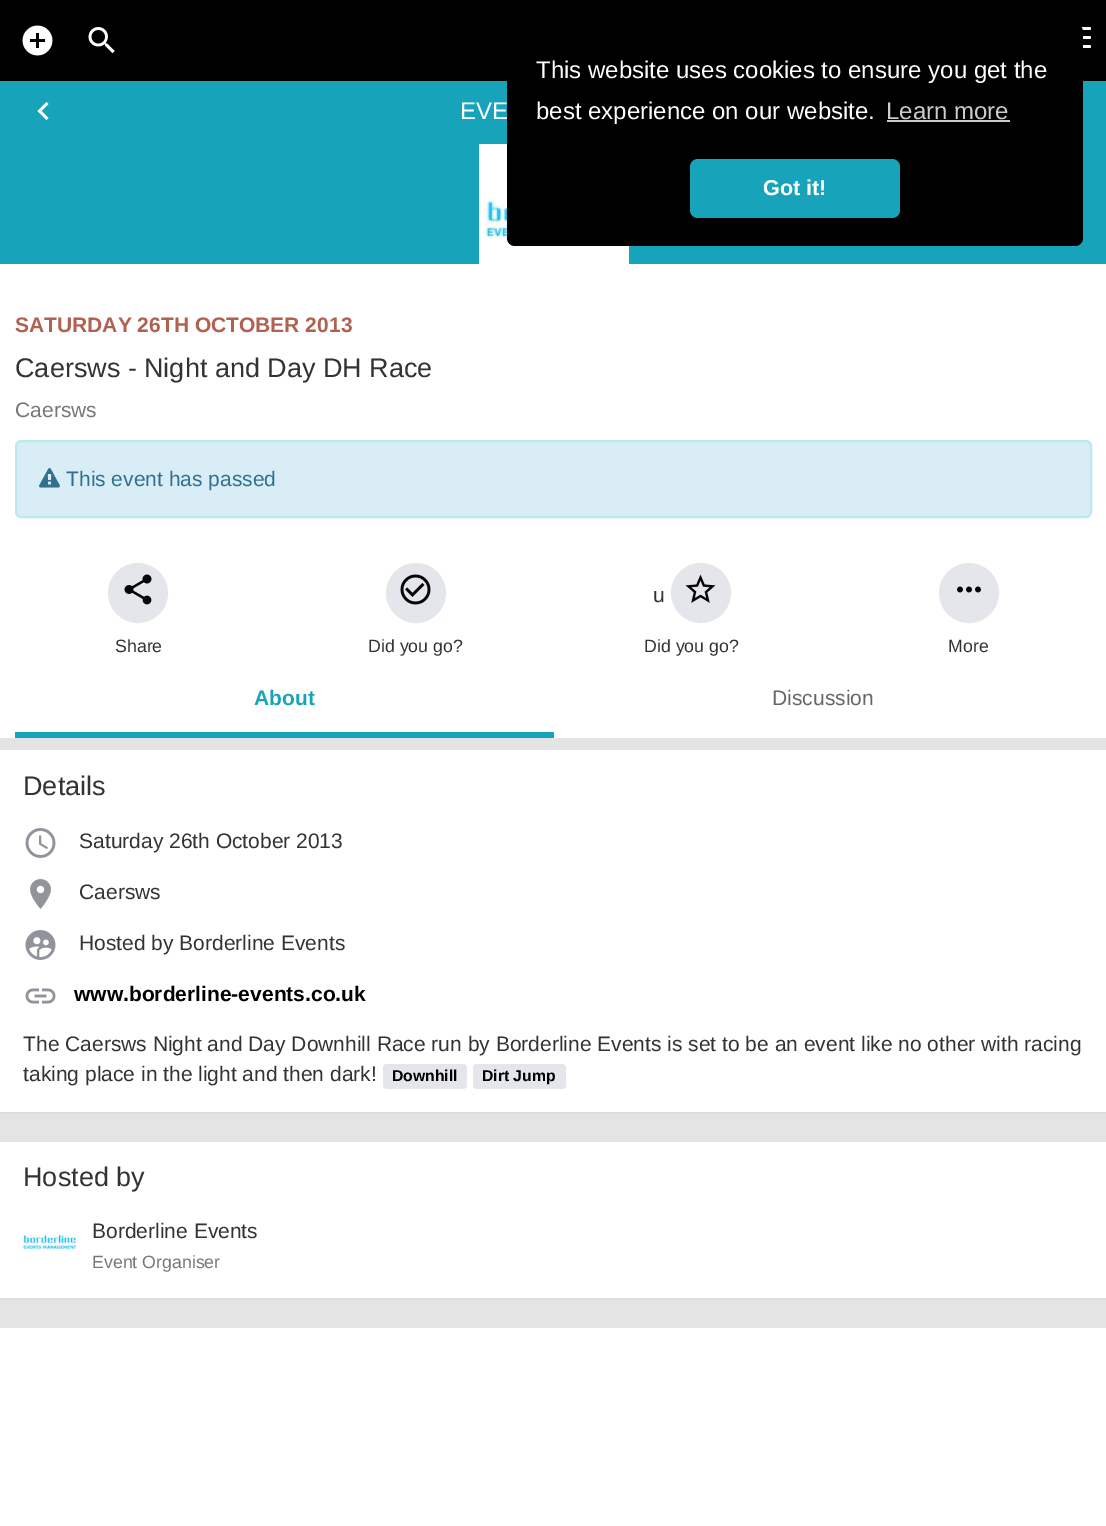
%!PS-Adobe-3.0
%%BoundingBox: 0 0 1106 1526
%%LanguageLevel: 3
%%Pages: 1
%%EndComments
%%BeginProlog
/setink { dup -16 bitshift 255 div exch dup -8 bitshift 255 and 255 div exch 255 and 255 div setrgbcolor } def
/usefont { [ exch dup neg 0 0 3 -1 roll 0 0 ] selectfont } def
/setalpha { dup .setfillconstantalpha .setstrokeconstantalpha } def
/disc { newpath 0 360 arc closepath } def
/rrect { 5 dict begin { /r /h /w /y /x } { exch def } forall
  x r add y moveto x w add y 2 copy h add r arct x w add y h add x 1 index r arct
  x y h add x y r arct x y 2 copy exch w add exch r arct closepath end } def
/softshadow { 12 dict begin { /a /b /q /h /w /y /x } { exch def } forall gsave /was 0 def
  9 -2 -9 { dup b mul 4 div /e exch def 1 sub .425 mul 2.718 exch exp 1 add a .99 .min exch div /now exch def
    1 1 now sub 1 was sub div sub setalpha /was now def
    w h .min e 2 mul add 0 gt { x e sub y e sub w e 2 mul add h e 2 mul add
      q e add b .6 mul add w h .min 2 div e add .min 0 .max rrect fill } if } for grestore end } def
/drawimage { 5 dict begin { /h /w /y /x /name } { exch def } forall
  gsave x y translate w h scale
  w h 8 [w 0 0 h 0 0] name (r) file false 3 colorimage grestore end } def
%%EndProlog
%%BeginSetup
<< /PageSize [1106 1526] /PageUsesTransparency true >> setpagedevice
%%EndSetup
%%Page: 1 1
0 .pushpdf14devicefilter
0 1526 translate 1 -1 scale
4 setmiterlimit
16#E4E4E4 setink
0 0 1106 1526 rectfill
16#000000 setink
0 0 1106 81 rectfill
(img1.raw) 22 25 31 31 drawimage
(img2.raw) 88 27 27 27 drawimage
16#FFFFFF setink
1058 27 33 3 1.5 rrect fill
1058 36 33 3 1.5 rrect fill
1058 45 33 3 1.5 rrect fill
16#17A4BA setink
0 81 1106 183 rectfill
16#FFFFFF setink
48.5 118 moveto 46.5 120 lineto 37.5 111 lineto 46.5 102 lineto 48.5 104 lineto 41.5 111 lineto closepath fill
/LiberationSans-Regular 24 usefont
460 119 moveto (EVE) show
479 144 150 120 rectfill
(img3.raw) 484 194 24 45 drawimage
16#000000 setink
507 24 576 222 8 rrect fill
16#FFFFFF setink
536 78 moveto (This website uses cookies to ensure you get the) show
536 119 moveto (best experience on our website.) show
16#CCCCCC setink
886 119 moveto (Learn more) show
887 120 123 2 rectfill
16#17A4BA setink
690 159 210 59 8 rrect fill
/LiberationSans-Bold 21.5 usefont
16#FFFFFF setink
763 195 moveto (Got it!) show
0 264 1106 474 rectfill
/LiberationSans-Bold 21 usefont
16#B06150 setink
15 332 moveto (SATURDAY 26TH OCTOBER 2013) show
/LiberationSans-Regular 27 usefont
16#333333 setink
15 377 moveto (Caersws - Night and Day DH Race) show
/LiberationSans-Regular 21 usefont
16#777777 setink
15 417 moveto (Caersws) show
16#D9EDF7 setink
16 441 1075 76 5 rrect gsave fill grestore
16#BCE8F1 setink
2 setlinewidth
stroke
(img4.raw) 39 468 21 20 drawimage
16#31708F setink
66 486 moveto (This event has passed) show
16#E4E6EB setink
138 593 29 disc gsave fill grestore
stroke
(img5.raw) 124 574 28 31 drawimage
/LiberationSans-Regular 17.75 usefont
16#333333 setink
115 652 moveto (Share) show
16#E4E6EB setink
416 593 29 disc gsave fill grestore
stroke
(img6.raw) 400 574 31 31 drawimage
16#333333 setink
368 652 moveto (Did you go?) show
/LiberationSans-Regular 21 usefont
653 602 moveto (u) show
16#E4E6EB setink
701 593 29 disc gsave fill grestore
stroke
(img7.raw) 685 574 31 29 drawimage
/LiberationSans-Regular 17.75 usefont
16#333333 setink
644 652 moveto (Did you go?) show
16#E4E6EB setink
969 593 29 disc gsave fill grestore
stroke
(img8.raw) 957 586 24 7 drawimage
16#333333 setink
948 652 moveto (More) show
16#17A4BA setink
15 732 539 6 rectfill
/LiberationSans-Bold 21 usefont
254 705 moveto (About) show
/LiberationSans-Regular 21 usefont
16#65676B setink
772 705 moveto (Discussion) show
16#000000 setink
0 752 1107 361 0 1 0.05 softshadow
16#FFFFFF setink
0 750 1106 362 rectfill
/LiberationSans-Regular 27 usefont
16#333333 setink
23 795 moveto (Details) show
(img9.raw) 25 828 31 30 drawimage
/LiberationSans-Regular 21 usefont
79 848 moveto (Saturday 26th October 2013) show
(img10.raw) 30 879 21 30 drawimage
79 899 moveto (Caersws) show
(img11.raw) 25 930 31 30 drawimage
79 950 moveto (Hosted by Borderline Events) show
(img12.raw) 25 988 31 16 drawimage
/LiberationSans-Bold 21 usefont
16#000000 setink
74 1001 moveto (www.borderline-events.co.uk) show
/LiberationSans-Regular 21 usefont
16#333333 setink
23 1051 moveto (The Caersws Night and Day Downhill Race run by Borderline Events is set to be an event like no other with racing) show
23 1081 moveto (taking place in the light and then dark!) show
16#E4E6EB setink
383 1064 84 25 4 rrect fill
/LiberationSans-Bold 15.75 usefont
16#000000 setink
392 1081 moveto (Downhill) show
16#E4E6EB setink
473 1064 93 25 4 rrect fill
16#000000 setink
482 1081 moveto (Dirt Jump) show
0 1143 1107 156 0 1 0.05 softshadow
16#FFFFFF setink
0 1142 1106 156 rectfill
/LiberationSans-Regular 27 usefont
16#333333 setink
23 1186 moveto (Hosted by) show
(img13.raw) 23 1232 53 18 drawimage
/LiberationSans-Regular 21 usefont
92 1238 moveto (Borderline Events) show
/LiberationSans-Regular 17.75 usefont
16#777777 setink
92 1268 moveto (Event Organiser) show
16#FFFFFF setink
0 1328 1106 198 rectfill
.poppdf14devicefilter showpage
%%EOF
